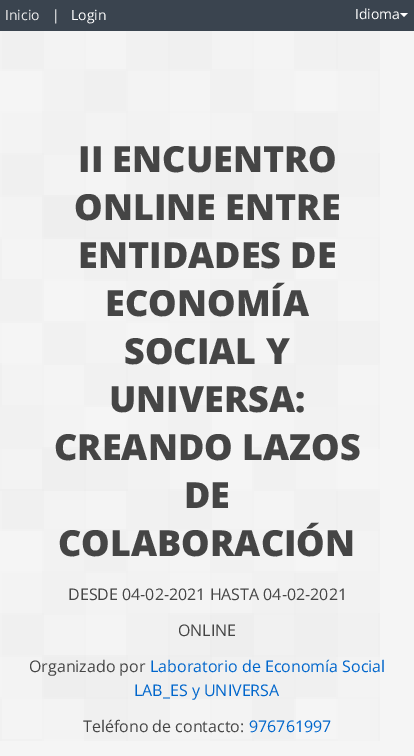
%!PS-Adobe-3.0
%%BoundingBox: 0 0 414 756
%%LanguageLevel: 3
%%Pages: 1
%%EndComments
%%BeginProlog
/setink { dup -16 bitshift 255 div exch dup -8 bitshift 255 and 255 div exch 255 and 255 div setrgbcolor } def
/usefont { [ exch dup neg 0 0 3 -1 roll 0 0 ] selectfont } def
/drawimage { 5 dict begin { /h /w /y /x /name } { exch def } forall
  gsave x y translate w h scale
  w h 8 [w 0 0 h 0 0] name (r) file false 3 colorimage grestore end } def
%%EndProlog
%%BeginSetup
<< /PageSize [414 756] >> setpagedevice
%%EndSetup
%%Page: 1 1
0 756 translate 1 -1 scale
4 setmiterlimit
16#F5F5F5 setink
0 0 414 756 rectfill
16#3A444F setink
0 0 414 31 rectfill
/OpenSans-Regular 14 usefont
16#EEEEEE setink
5 20 moveto (Inicio) show
16#FFFFFF setink
[
    [(|) 52 20]
    [(Login) 71 20]
    [(Idioma) 355 19]
] { aload pop moveto show } forall
400 13 moveto 408 13 lineto 404 17 lineto closepath fill
(img1.raw) 0 31 380 710 drawimage
/OpenSans-ExtraBold 36 usefont
16#454545 setink
[
    [(II ENCUENTRO) 78 172]
    [(ONLINE ENTRE) 74 220]
    [(ENTIDADES DE) 78 268]
    [(ECONOMÍA) 105 316]
    [(SOCIAL Y) 124 364]
    [(UNIVERSA:) 109 412]
    [(CREANDO LAZOS) 54 460]
    [(DE) 184 508]
    [(COLABORACIÓN) 58 556]
] { aload pop moveto show } forall
/OpenSans-Regular 16 usefont
[
    [(DESDE 04-02-2021 HASTA 04-02-2021) 68 600]
    [(ONLINE) 178 636]
    [(Organizado por) 29 672]
] { aload pop moveto show } forall
16#0066CC setink
150 672 moveto (Laboratorio de Economía Social) show
134 696 moveto (LAB_ES y UNIVERSA) show
16#454545 setink
83 732 moveto (Teléfono de contacto:) show
16#0066CC setink
249 732 moveto (976761997) show
showpage
%%EOF
